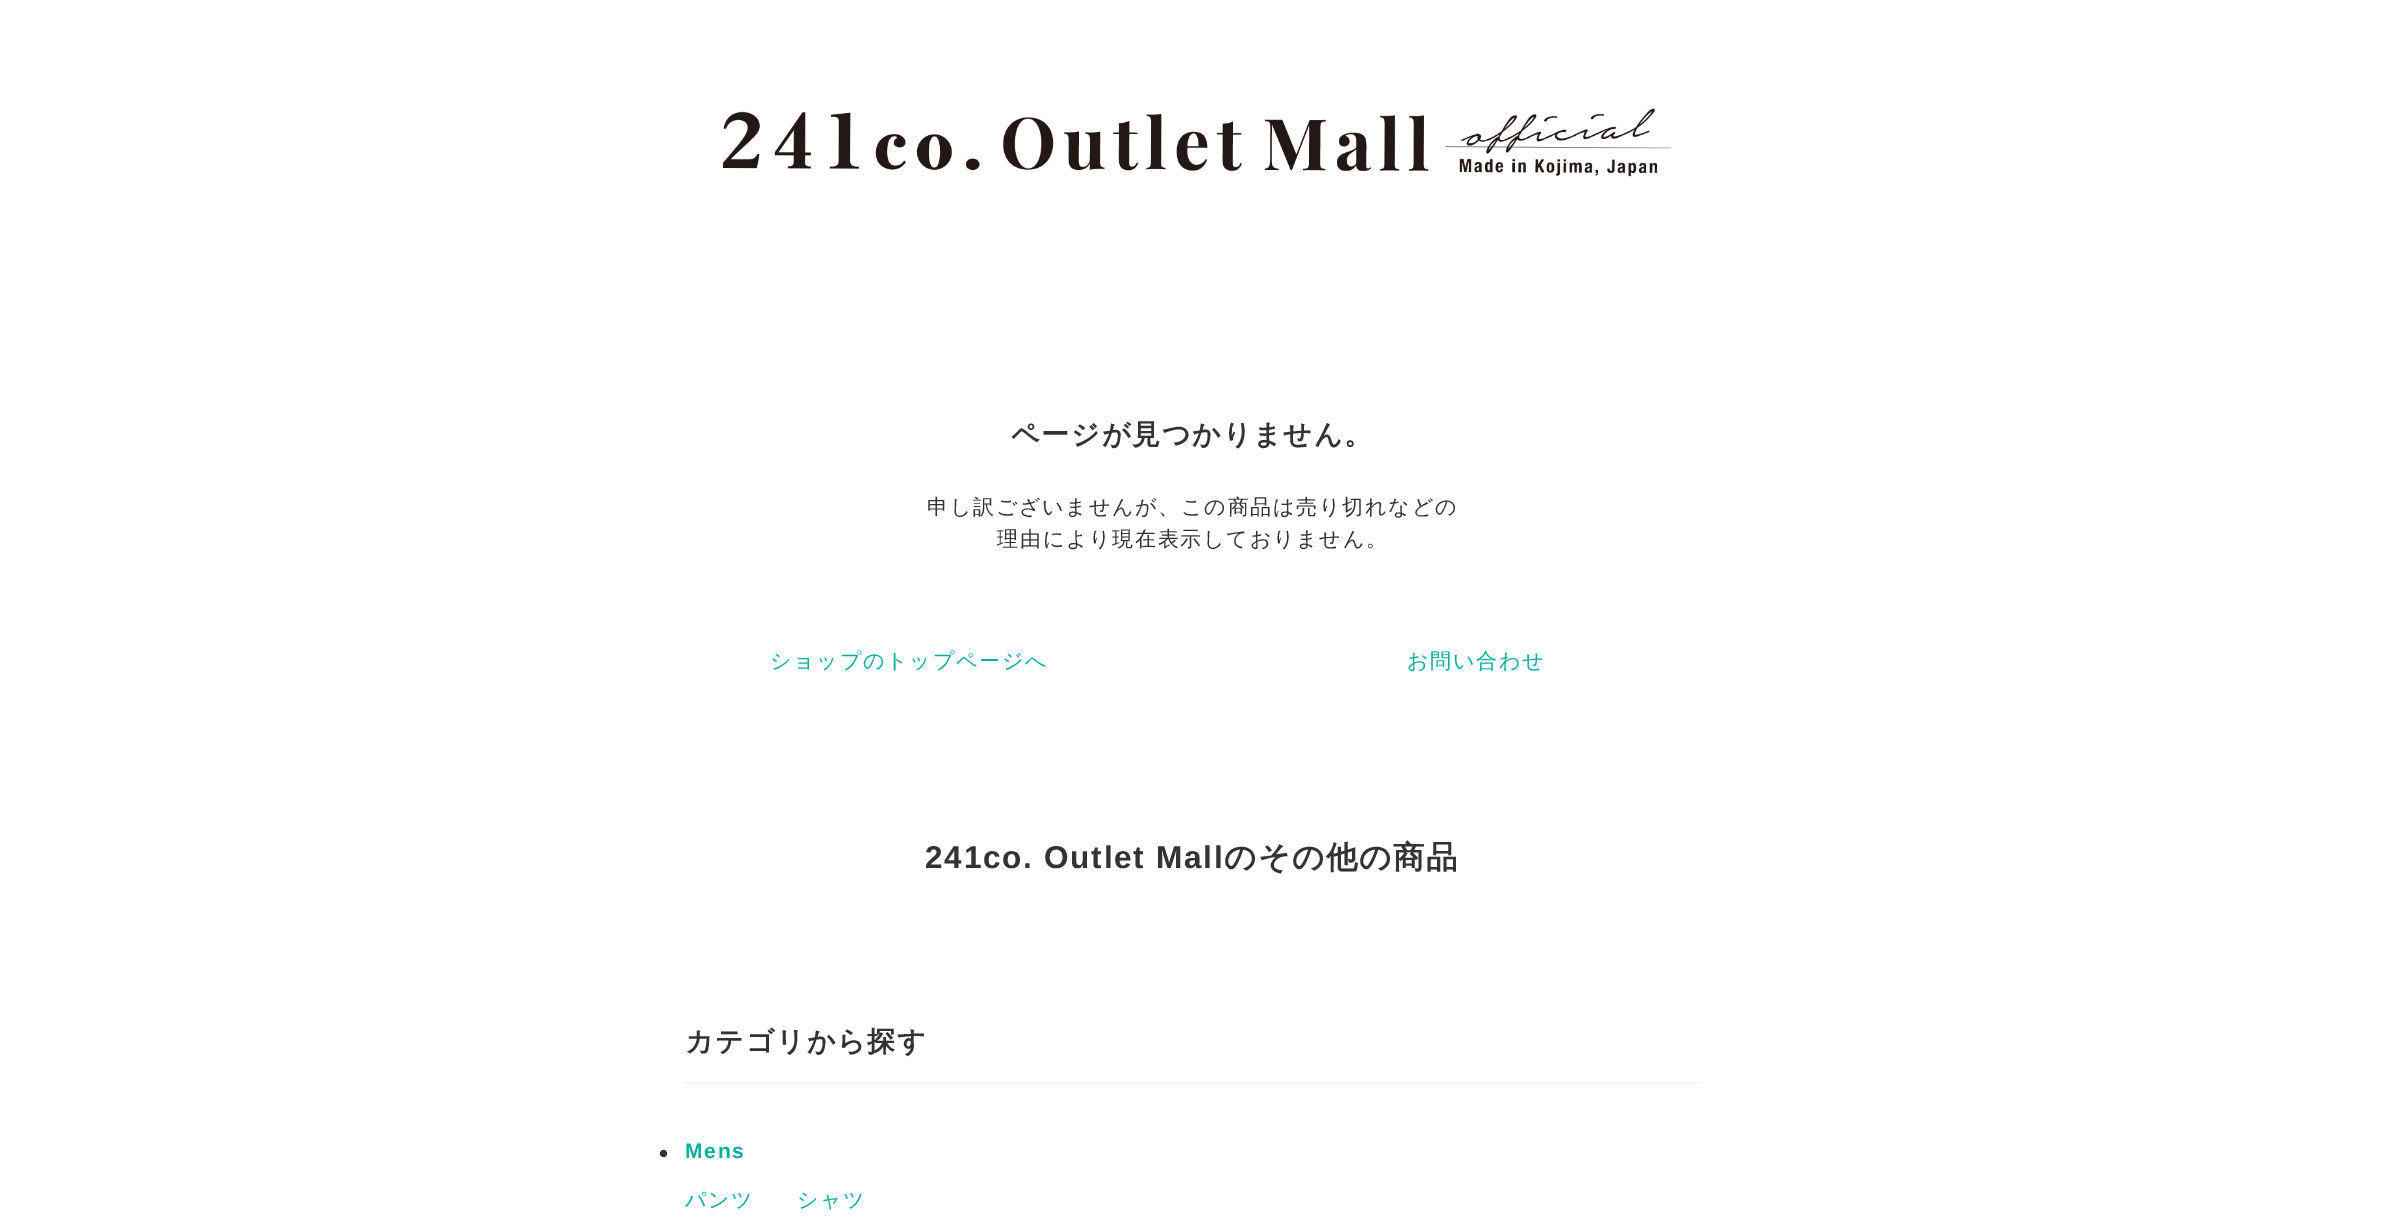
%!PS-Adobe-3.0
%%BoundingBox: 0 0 2385 1230
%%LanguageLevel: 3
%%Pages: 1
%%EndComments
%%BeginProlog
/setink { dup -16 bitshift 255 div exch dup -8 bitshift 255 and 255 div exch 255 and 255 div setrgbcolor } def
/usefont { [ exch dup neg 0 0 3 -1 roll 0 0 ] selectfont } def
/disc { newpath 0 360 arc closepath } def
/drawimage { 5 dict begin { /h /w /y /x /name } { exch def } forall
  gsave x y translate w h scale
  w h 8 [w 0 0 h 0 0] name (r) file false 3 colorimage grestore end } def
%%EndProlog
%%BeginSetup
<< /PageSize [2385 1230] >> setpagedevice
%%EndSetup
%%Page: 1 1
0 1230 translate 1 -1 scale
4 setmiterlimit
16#FFFFFF setink
0 0 2385 1230 rectfill
(img1.raw) 722 108 950 69 drawimage
/WenQuanYiZenHei-Bold 28 usefont
16#333333 setink
1011 444 moveto 1.75 0 (ページが見つかりません。) ashow
/WenQuanYiZenHei-Medium 21 usefont
927 514 moveto 1.75 0 (申し訳ございませんが、この商品は売り切れなどの) ashow
997 546 moveto 1.75 0 (理由により現在表示しておりません。) ashow
16#00AE9F setink
770 668 moveto 1.75 0 (ショップのトップページへ) ashow
1407 668 moveto 1.75 0 (お問い合わせ) ashow
/LiberationSans-Bold 31.5 usefont
16#333333 setink
925 868 moveto 1.75 0 (241co. Outlet Mall) ashow
/WenQuanYiZenHei-Bold 31.5 usefont
1224 868 moveto 1.75 0 (のその他の商品) ashow
16#F5F5F5 setink
684 1082 1017 2 rectfill
/WenQuanYiZenHei-Bold 28 usefont
16#333333 setink
685 1051 moveto 1.75 0 (カテゴリから探す) ashow
663.5 1153.5 3.5 disc fill
/LiberationSans-Bold 21 usefont
16#00AE9F setink
685 1158 moveto 1.75 0 (Mens) ashow
/WenQuanYiZenHei-Medium 21 usefont
685 1207 moveto 1.75 0 (パンツ) ashow
797 1207 moveto 1.75 0 (シャツ) ashow
showpage
%%EOF
